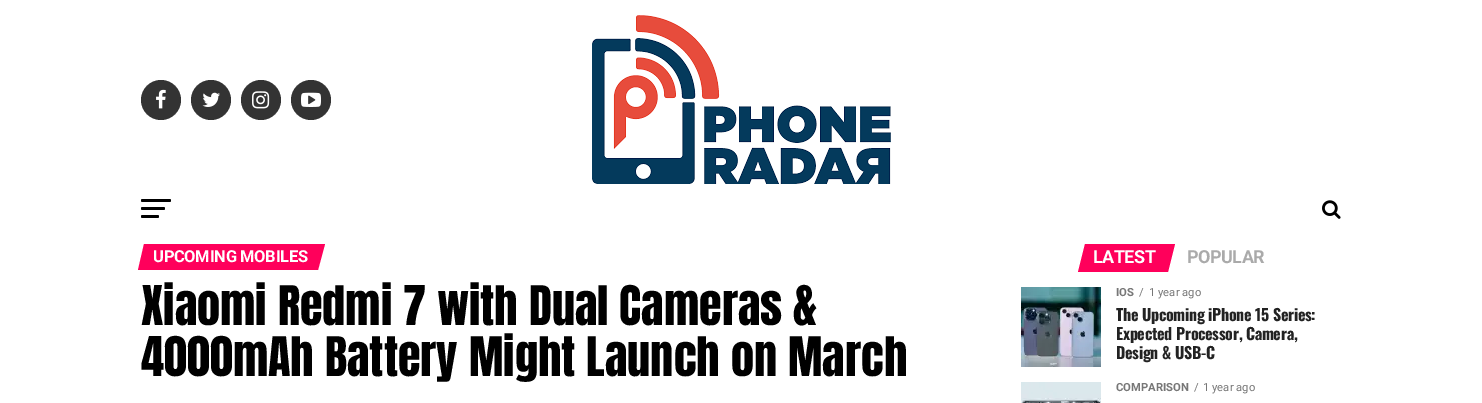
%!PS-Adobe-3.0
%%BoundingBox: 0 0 1482 403
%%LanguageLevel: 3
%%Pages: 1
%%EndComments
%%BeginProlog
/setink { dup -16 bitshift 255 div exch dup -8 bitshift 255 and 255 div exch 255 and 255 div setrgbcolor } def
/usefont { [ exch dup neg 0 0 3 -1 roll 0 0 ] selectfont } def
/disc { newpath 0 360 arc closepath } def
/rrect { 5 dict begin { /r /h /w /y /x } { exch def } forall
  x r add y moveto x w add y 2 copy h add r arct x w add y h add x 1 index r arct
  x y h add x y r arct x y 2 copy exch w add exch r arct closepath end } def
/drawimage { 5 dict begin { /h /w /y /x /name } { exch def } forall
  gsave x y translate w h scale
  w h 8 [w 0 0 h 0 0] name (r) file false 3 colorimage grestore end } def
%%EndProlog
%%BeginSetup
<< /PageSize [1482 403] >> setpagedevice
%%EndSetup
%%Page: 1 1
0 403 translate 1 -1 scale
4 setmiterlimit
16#FFFFFF setink
0 0 1482 403 rectfill
16#333333 setink
161 100 20 disc fill
(img1.raw) 156 89 10 20 drawimage
211 100 20 disc fill
(img2.raw) 202 92 18 15 drawimage
261 100 20 disc fill
(img3.raw) 252 91 18 18 drawimage
311 100 20 disc fill
(img4.raw) 301 92 20 15 drawimage
(img5.raw) 592 15 299 169 drawimage
16#000000 setink
141 199 30 3 1.5 rrect fill
141 207 24 3 1.5 rrect fill
141 215 18 3 1.5 rrect fill
(img6.raw) 1322 200 19 19 drawimage
16#FF005B setink
144 244 moveto 325 244 lineto 318 270 lineto 138 270 lineto closepath fill
/Roboto-Bold 16.5 usefont
16#FFFFFF setink
153 262 moveto -0.3 0 (UPCOMING MOBILES) ashow
/Anton-Regular 46.4 usefont
16#000000 setink
141 325 moveto (Xiaomi Redmi 7 with Dual Cameras &) show
141 376 moveto (4000mAh Battery Might Launch on March) show
16#FF005B setink
1085 244 moveto 1175 244 lineto 1168 272 lineto 1078 272 lineto closepath fill
/Roboto-Bold 18 usefont
16#FFFFFF setink
1093 263 moveto -0.5 0 (LATEST) ashow
16#AAAAAA setink
1187 263 moveto -0.5 0 (POPULAR) ashow
(img7.raw) 1021 287 80 80 drawimage
/Roboto-Bold 11.25 usefont
16#777777 setink
1116 296 moveto (IOS) show
/Roboto-Regular 11.25 usefont
1139 296 moveto (/) show
1149 296 moveto (1 year ago) show
/Oswald-Bold 16 usefont
16#222222 setink
1116 321 moveto -0.3 0 (The Upcoming iPhone 15 Series:) ashow
1116 340 moveto -0.3 0 (Expected Processor, Camera,) ashow
1116 359 moveto -0.3 0 (Design & USB-C) ashow
(img8.raw) 1021 382 80 21 drawimage
/Roboto-Bold 11.25 usefont
16#777777 setink
1116 391 moveto (COMPARISON) show
/Roboto-Regular 11.25 usefont
1194 391 moveto (/) show
1203 391 moveto (1 year ago) show
showpage
%%EOF
